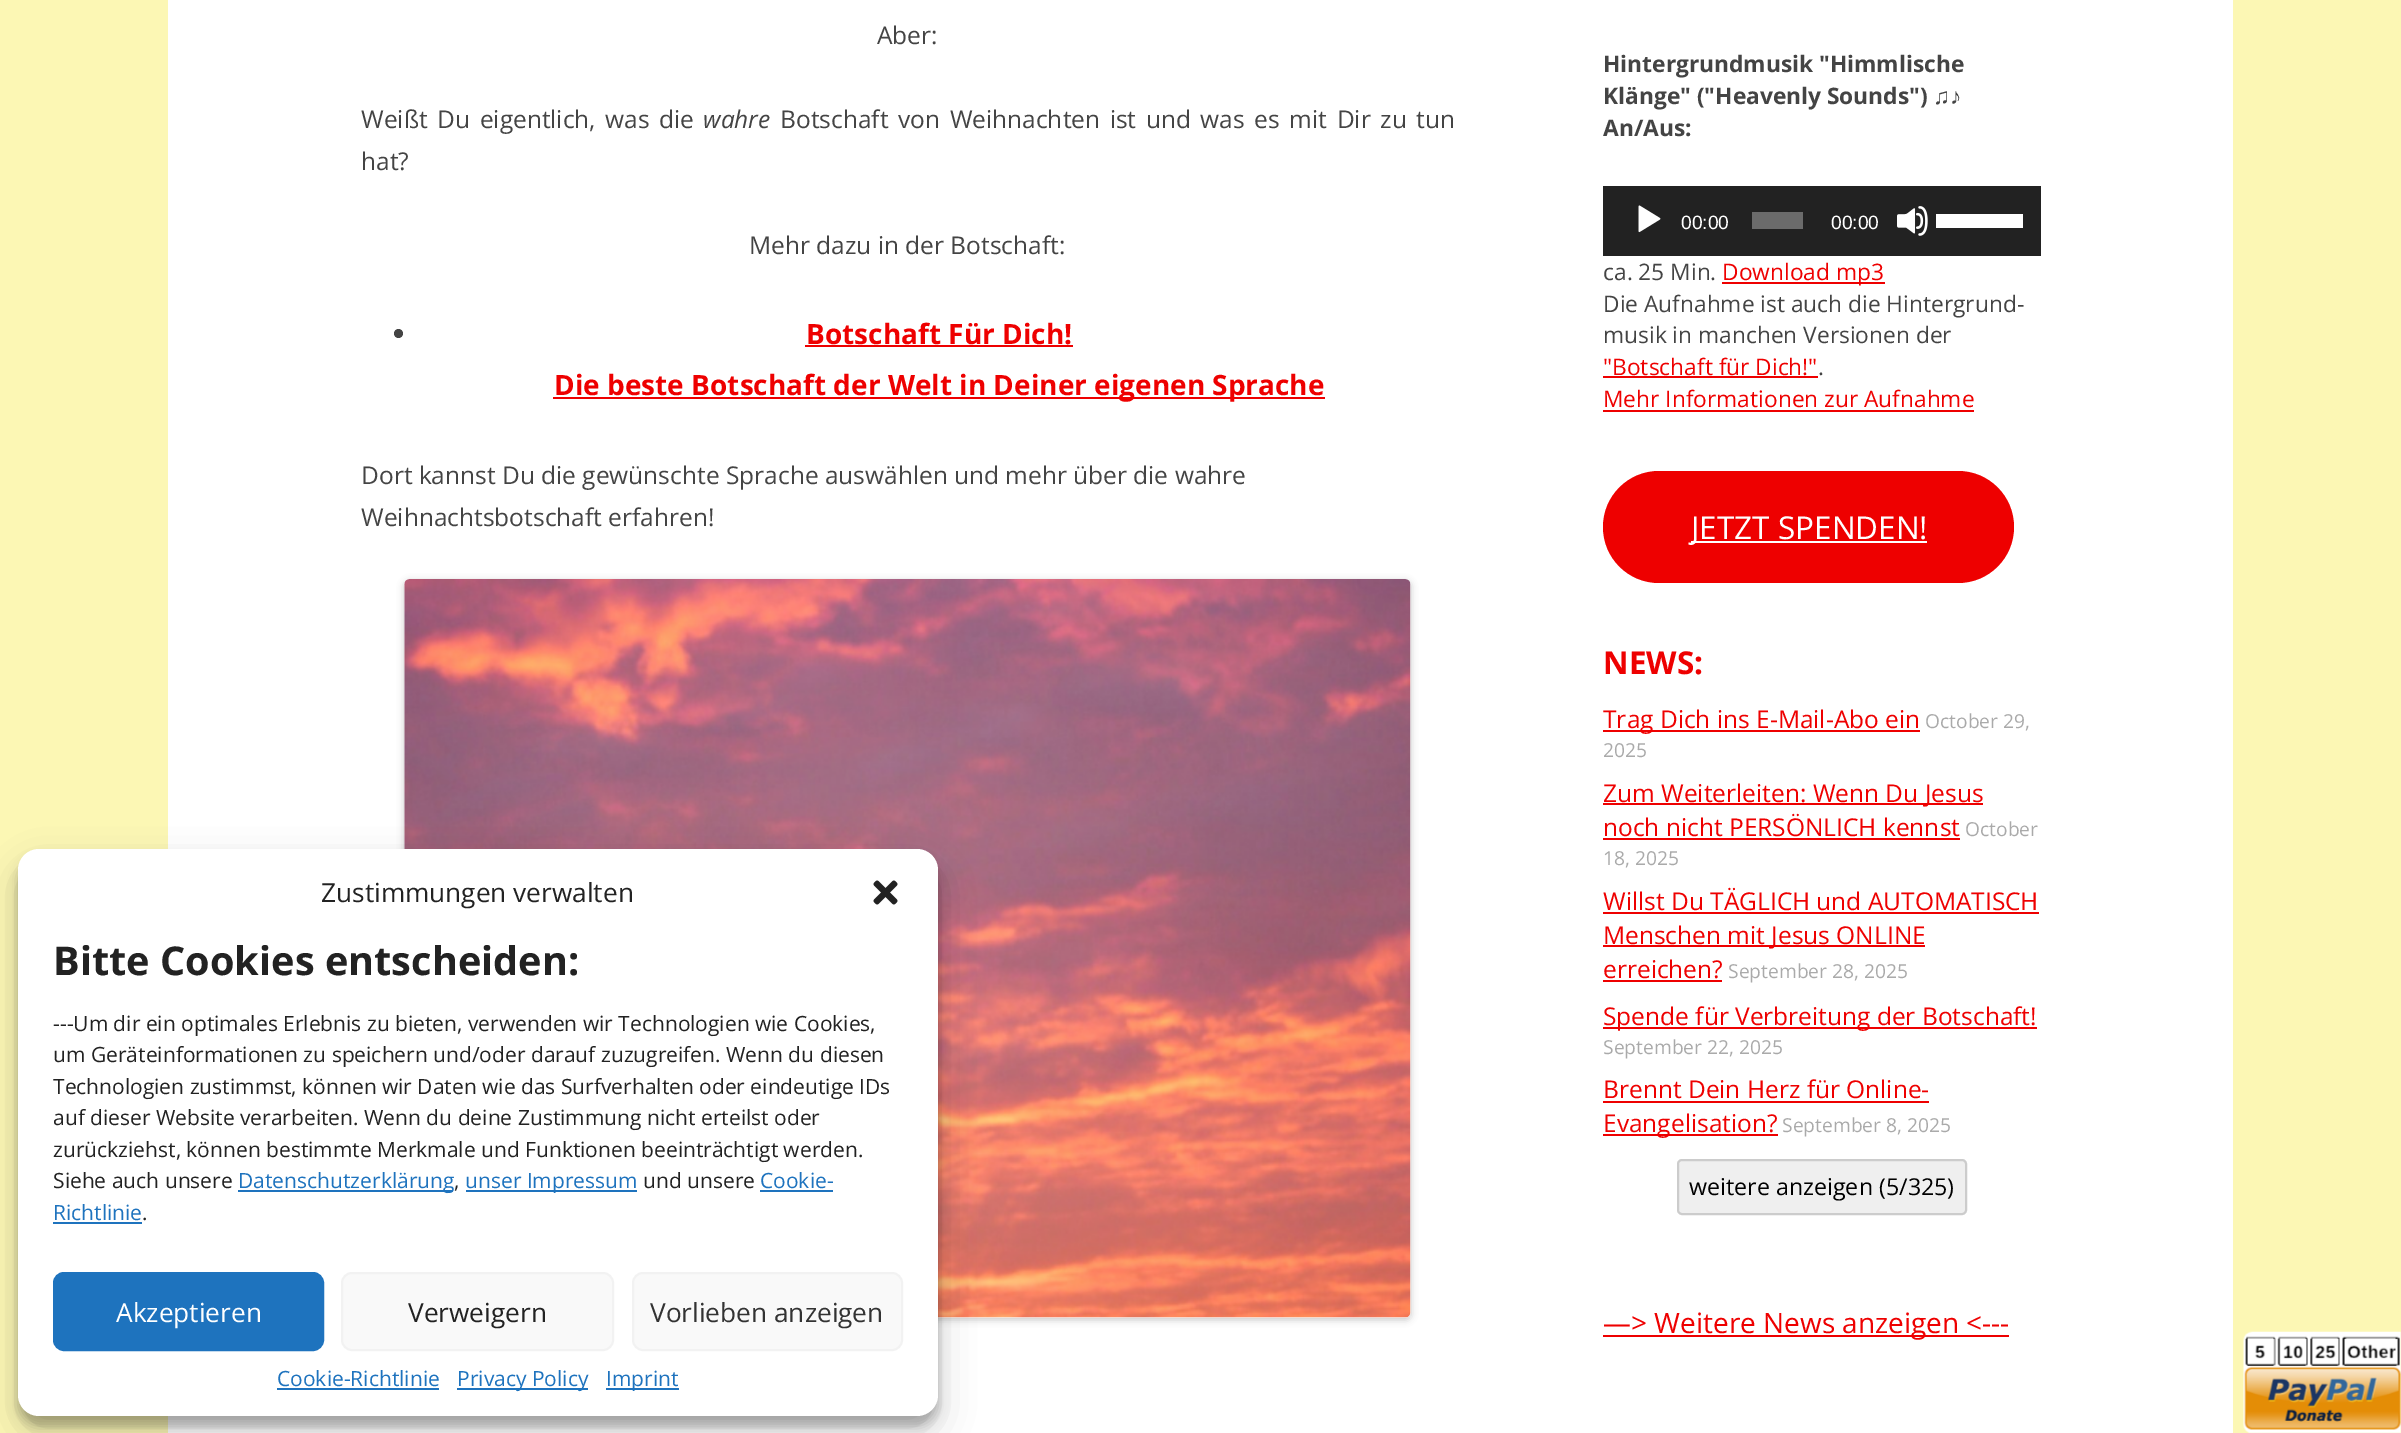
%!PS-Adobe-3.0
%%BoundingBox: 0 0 2401 1433
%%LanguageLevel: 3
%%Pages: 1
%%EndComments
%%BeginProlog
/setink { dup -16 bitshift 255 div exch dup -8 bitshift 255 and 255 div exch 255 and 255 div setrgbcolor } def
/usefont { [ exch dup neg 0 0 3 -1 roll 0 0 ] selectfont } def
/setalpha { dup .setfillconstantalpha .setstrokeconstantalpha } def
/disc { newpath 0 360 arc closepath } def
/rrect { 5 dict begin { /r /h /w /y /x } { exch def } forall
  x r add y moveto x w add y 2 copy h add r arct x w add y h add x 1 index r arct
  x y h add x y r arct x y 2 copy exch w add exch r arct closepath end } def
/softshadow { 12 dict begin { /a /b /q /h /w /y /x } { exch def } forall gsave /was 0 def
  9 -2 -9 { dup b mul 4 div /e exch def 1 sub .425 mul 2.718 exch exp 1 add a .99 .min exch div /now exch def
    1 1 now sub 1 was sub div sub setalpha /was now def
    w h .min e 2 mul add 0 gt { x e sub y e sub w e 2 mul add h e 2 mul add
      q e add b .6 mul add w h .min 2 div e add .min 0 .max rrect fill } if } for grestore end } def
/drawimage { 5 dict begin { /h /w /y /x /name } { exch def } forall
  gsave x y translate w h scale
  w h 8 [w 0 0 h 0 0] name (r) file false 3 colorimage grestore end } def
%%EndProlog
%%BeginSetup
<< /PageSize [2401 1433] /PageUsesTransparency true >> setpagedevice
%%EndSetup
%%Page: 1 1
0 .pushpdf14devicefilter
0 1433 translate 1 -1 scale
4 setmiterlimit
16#FCF7B4 setink
0 0 2401 1433 rectfill
16#FFFFFF setink
168 0 2065 1433 rectfill
/OpenSans-Regular 24.5 usefont
16#444444 setink
877 44 moveto (Aber:) show
361 128 moveto 3.25 0 32 (Weißt Du eigentlich, was die) widthshow
/OpenSans-Italic 24.5 usefont
703 128 moveto (wahre) show
/OpenSans-Regular 24.5 usefont
780 128 moveto 3.25 0 32 (Botschaft von Weihnachten ist und was es mit Dir zu tun) widthshow
361 170 moveto (hat?) show
749 254 moveto (Mehr dazu in der Botschaft:) show
398.5 333.5 4.5 disc fill
/OpenSans-Bold 28 usefont
16#EE0000 setink
806 344 moveto (Botschaft Für Dich!) show
805 345 268 2 rectfill
553 397 772 2 rectfill
554 395 moveto (Die beste Botschaft der Welt in Deiner eigenen Sprache) show
/OpenSans-Regular 24.5 usefont
16#444444 setink
361 484 moveto (Dort kannst Du die gewünschte Sprache auswählen und mehr über die wahre) show
361 526 moveto (Weihnachtsbotschaft erfahren!) show
16#000000 setink
404 581 1007 739 5 3.5 0.2 softshadow
(img1.raw) 404 579 1007 739 drawimage
/OpenSans-Bold 22.75 usefont
16#444444 setink
1603 72 moveto (Hintergrundmusik "Himmlische) show
1603 104 moveto (Klänge" \("Heavenly Sounds"\)) show
/LiberationSans-Bold 22.75 usefont
1933 104 moveto (♫♪) show
/OpenSans-Bold 22.75 usefont
1603 136 moveto (An/Aus:) show
16#222222 setink
1603 186 438 70 rectfill
(img2.raw) 1638 205 23 28 drawimage
/LiberationSans-Regular 19.25 usefont
16#FFFFFF setink
1681 229 moveto (00:00) show
16#6B6B6B setink
1752 212 51 17 rectfill
16#FFFFFF setink
1831 229 moveto (00:00) show
(img3.raw) 1897 206 31 30 drawimage
1936 214 87 14 rectfill
/OpenSans-Regular 22.75 usefont
16#444444 setink
1603 280 moveto (ca. 25 Min.) show
16#EE0000 setink
1722 282 163 2 rectfill
1722 280 moveto (Download mp3) show
16#444444 setink
1603 312 moveto (Die Aufnahme ist auch die Hintergrund-) show
1603 343 moveto (musik in manchen Versionen der) show
16#EE0000 setink
1603 375 moveto ("Botschaft für Dich!") show
1603 376 215 2 rectfill
16#444444 setink
1818 375 moveto (.) show
16#EE0000 setink
1603 407 moveto (Mehr Informationen zur Aufnahme) show
1603 410 371 2 rectfill
1603 471 411 112 56 rrect fill
16#FFFFFF setink
1691 541 236 2 rectfill
/OpenSans-Regular 31.5 usefont
1691 539 moveto (JETZT SPENDEN!) show
/OpenSans-Bold 31.5 usefont
16#EE0000 setink
1603 674 moveto (NEWS:) show
1603 730 317 2 rectfill
/OpenSans-Regular 24.5 usefont
1603 728 moveto (Trag Dich ins E-Mail-Abo ein) show
/OpenSans-Regular 19.25 usefont
16#AAAAAA setink
1925 728 moveto (October 29,) show
1603 757 moveto (2025) show
16#EE0000 setink
1603 803 380 2 rectfill
/OpenSans-Regular 24.5 usefont
1603 802 moveto (Zum Weiterleiten: Wenn Du Jesus) show
1603 836 moveto (noch nicht PERSÖNLICH kennst) show
1603 838 357 2 rectfill
/OpenSans-Regular 19.25 usefont
16#AAAAAA setink
1965 836 moveto (October) show
1603 865 moveto (18, 2025) show
/OpenSans-Regular 24.5 usefont
16#EE0000 setink
1603 910 moveto (Willst Du TÄGLICH und AUTOMATISCH) show
1603 912 436 2 rectfill
1603 945 322 2 rectfill
1603 944 moveto (Menschen mit Jesus ONLINE) show
1603 978 moveto (erreichen?) show
1603 980 119 2 rectfill
/OpenSans-Regular 19.25 usefont
16#AAAAAA setink
1728 978 moveto (September 28, 2025) show
16#EE0000 setink
1603 1027 434 2 rectfill
/OpenSans-Regular 24.5 usefont
1603 1025 moveto (Spende für Verbreitung der Botschaft!) show
/OpenSans-Regular 19.25 usefont
16#AAAAAA setink
1603 1054 moveto (September 22, 2025) show
/OpenSans-Regular 24.5 usefont
16#EE0000 setink
1603 1098 moveto (Brennt Dein Herz für Online-) show
1603 1101 326 2 rectfill
1603 1134 175 2 rectfill
1603 1132 moveto (Evangelisation?) show
/OpenSans-Regular 19.25 usefont
16#AAAAAA setink
1782 1132 moveto (September 8, 2025) show
16#EFEFEF setink
1678 1160 288 54 4 rrect gsave fill grestore
16#CCCCCC setink
2 setlinewidth
stroke
/OpenSans-Regular 23.25 usefont
16#000000 setink
1689 1195 moveto (weitere anzeigen \(5/325\)) show
16#EE0000 setink
1603 1335 406 2 rectfill
/OpenSans-Regular 28 usefont
1603 1333 moveto (—> Weitere News anzeigen <---) show
16#000000 setink
18 859 920 567 21 5 0.23 softshadow
18 866 920 567 21 17.5 0.19 softshadow
16#FFFFFF setink
18 849 920 567 21 rrect fill
/OpenSans-Regular 26.25 usefont
16#222222 setink
321 902 moveto (Zustimmungen verwalten) show
(img4.raw) 873 880 25 25 drawimage
gsave
53 945 850 292 rectclip
/OpenSans-Bold 39.7 usefont
53 975 moveto (Bitte Cookies entscheiden:) show
grestore
/OpenSans-Regular 21 usefont
[
    [(---Um dir ein optimales Erlebnis zu bieten, verwenden wir Technologien wie Cookies,) 53 1031]
    [(um Geräteinformationen zu speichern und/oder darauf zuzugreifen. Wenn du diesen) 53 1062]
    [(Technologien zustimmst, können wir Daten wie das Surfverhalten oder eindeutige IDs) 53 1094]
    [(auf dieser Website verarbeiten. Wenn du deine Zustimmung nicht erteilst oder) 53 1125]
    [(zurückziehst, können bestimmte Merkmale und Funktionen beeinträchtigt werden.) 53 1157]
    [(Siehe auch unsere) 53 1188]
] { aload pop moveto show } forall
16#1E73BE setink
238 1190 215 2 rectfill
238 1188 moveto (Datenschutzerklärung) show
16#222222 setink
454 1188 moveto (,) show
16#1E73BE setink
466 1190 171 2 rectfill
465 1188 moveto (unser Impressum) show
16#222222 setink
643 1188 moveto (und unsere) show
16#1E73BE setink
760 1188 moveto (Cookie-) show
760 1190 73 2 rectfill
53 1220 moveto (Richtlinie) show
53 1222 89 2 rectfill
16#222222 setink
142 1220 moveto (.) show
16#1E73BE setink
54 1273 269 77 10 rrect gsave fill grestore
stroke
/OpenSans-Regular 26.25 usefont
16#FFFFFF setink
116 1322 moveto (Akzeptieren) show
16#F9F9F9 setink
342 1273 271 77 10 rrect gsave fill grestore
16#F2F2F2 setink
stroke
16#222222 setink
408 1322 moveto (Verweigern) show
16#F9F9F9 setink
633 1273 269 77 10 rrect gsave fill grestore
16#F2F2F2 setink
stroke
16#333333 setink
650 1322 moveto (Vorlieben anzeigen) show
/OpenSans-Regular 21 usefont
16#1E73BE setink
277 1386 moveto (Cookie-Richtlinie) show
277 1388 162 2 rectfill
457 1388 131 2 rectfill
457 1386 moveto (Privacy Policy) show
606 1388 73 2 rectfill
606 1386 moveto (Imprint) show
(img5.raw) 2243 1331 158 102 drawimage
.poppdf14devicefilter showpage
%%EOF
